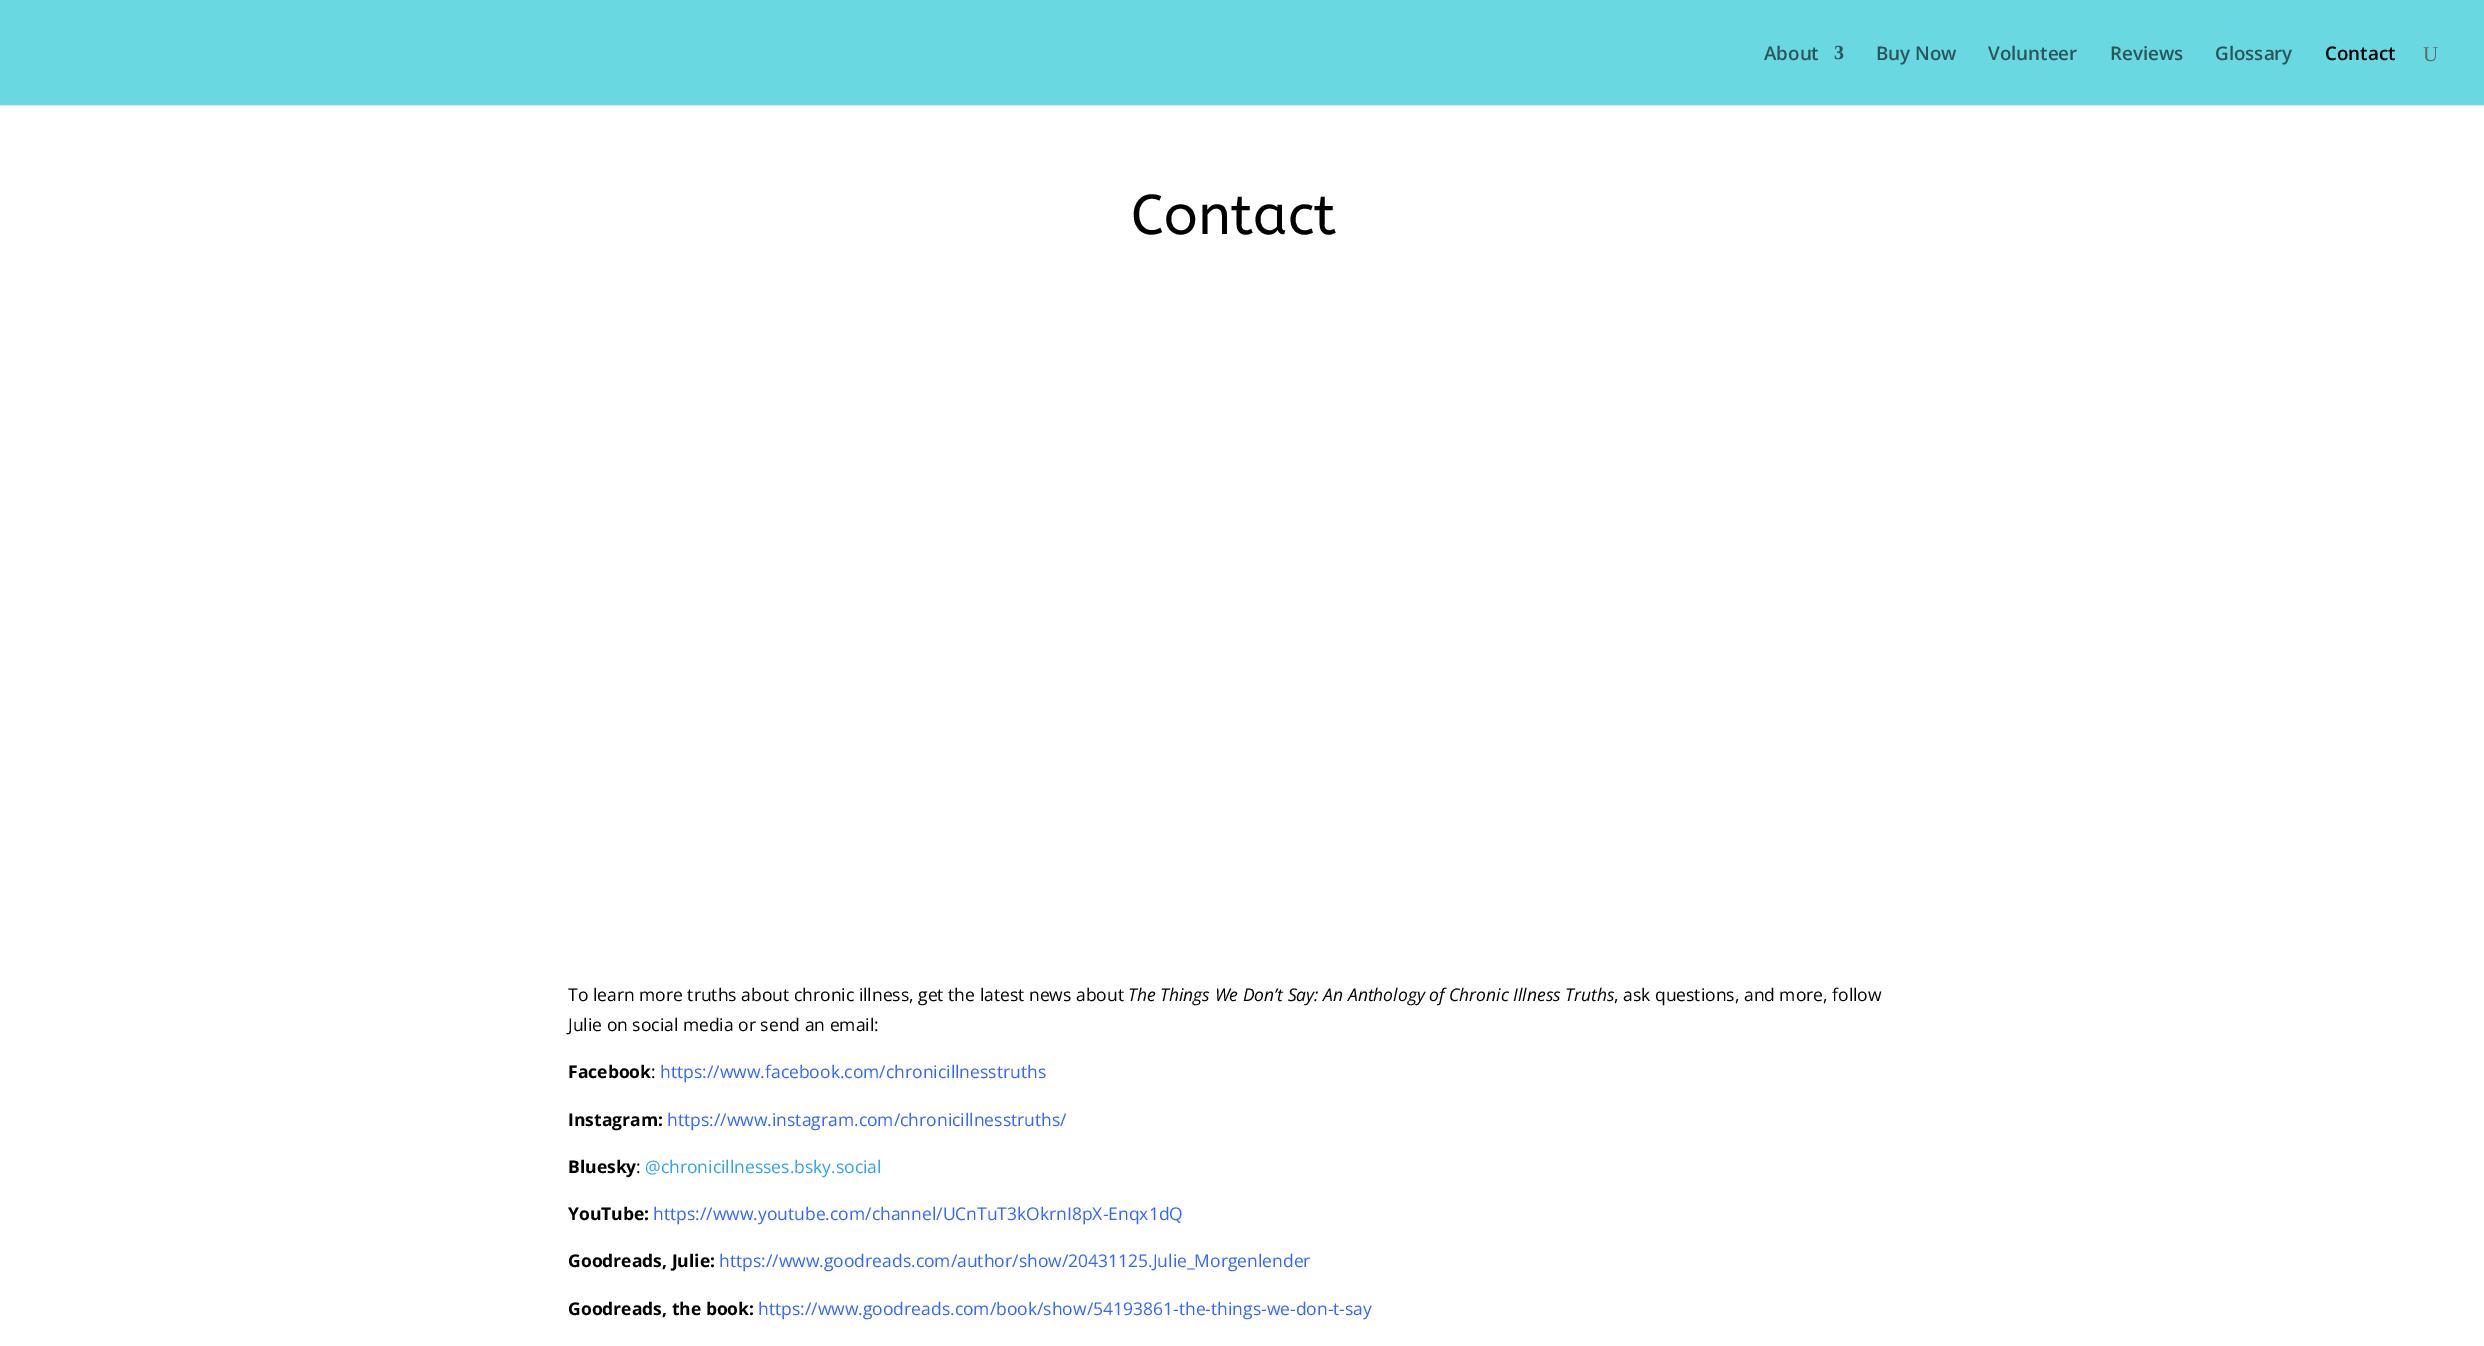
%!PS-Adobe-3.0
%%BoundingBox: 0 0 2484 1346
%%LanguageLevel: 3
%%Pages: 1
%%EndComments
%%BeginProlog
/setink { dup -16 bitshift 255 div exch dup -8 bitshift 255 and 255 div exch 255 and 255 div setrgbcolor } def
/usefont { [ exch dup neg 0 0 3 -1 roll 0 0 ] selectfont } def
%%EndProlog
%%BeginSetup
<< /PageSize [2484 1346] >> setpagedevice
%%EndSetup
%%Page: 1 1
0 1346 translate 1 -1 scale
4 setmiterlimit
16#FFFFFF setink
0 0 2484 1346 rectfill
16#E6E6E6 setink
0 105 2484 1 rectfill
16#69D8E1 setink
0 0 2484 105 rectfill
/OpenSans-SemiBold 18.75 usefont
16#2A565A setink
1764 60 moveto (About) show
/LiberationSerif-Bold 20 usefont
1834 59 moveto (3) show
/OpenSans-SemiBold 18.75 usefont
[
    [(Buy Now) 1876 60]
    [(Volunteer) 1988 60]
    [(Reviews) 2110 60]
    [(Glossary) 2215 60]
] { aload pop moveto show } forall
16#000000 setink
2325 60 moveto (Contact) show
/LiberationSerif-Regular 21 usefont
16#666666 setink
2423 61 moveto (U) show
/ABeeZee-Regular 56 usefont
16#000000 setink
1131 234 moveto (Contact) show
/OpenSans-Regular 17.5 usefont
568 1001 moveto (To learn more truths about chronic illness, get the latest news about) show
/OpenSans-Italic 17.5 usefont
1128 1001 moveto (The Things We Don’t Say: An Anthology of Chronic Illness Truths) show
/OpenSans-Regular 17.5 usefont
1614 1001 moveto (, ask questions, and more, follow) show
568 1031 moveto (Julie on social media or send an email:) show
/OpenSans-Bold 17.5 usefont
568 1078 moveto (Facebook) show
/OpenSans-Regular 17.5 usefont
651 1078 moveto (:) show
16#3366FF setink
660 1078 moveto (https://www.facebook.com/chronicillnesstruths) show
/OpenSans-Bold 17.5 usefont
16#000000 setink
568 1126 moveto (Instagram:) show
/OpenSans-Regular 17.5 usefont
16#3366FF setink
667 1126 moveto (https://www.instagram.com/chronicillnesstruths/) show
/OpenSans-Bold 17.5 usefont
16#000000 setink
568 1173 moveto (Bluesky) show
/OpenSans-Regular 17.5 usefont
636 1173 moveto (:) show
16#2EA3F2 setink
645 1173 moveto (@chronicillnesses.bsky.social) show
/OpenSans-Bold 17.5 usefont
16#000000 setink
568 1220 moveto (YouTube:) show
/OpenSans-Regular 17.5 usefont
16#3366FF setink
653 1220 moveto (https://www.youtube.com/channel/UCnTuT3kOkrnI8pX-Enqx1dQ) show
/OpenSans-Bold 17.5 usefont
16#000000 setink
568 1267 moveto (Goodreads, Julie:) show
/OpenSans-Regular 17.5 usefont
16#3366FF setink
719 1267 moveto (https://www.goodreads.com/author/show/20431125.Julie_Morgenlender) show
/OpenSans-Bold 17.5 usefont
16#000000 setink
568 1315 moveto (Goodreads, the book:) show
/OpenSans-Regular 17.5 usefont
16#3366FF setink
758 1315 moveto (https://www.goodreads.com/book/show/54193861-the-things-we-don-t-say) show
showpage
%%EOF
